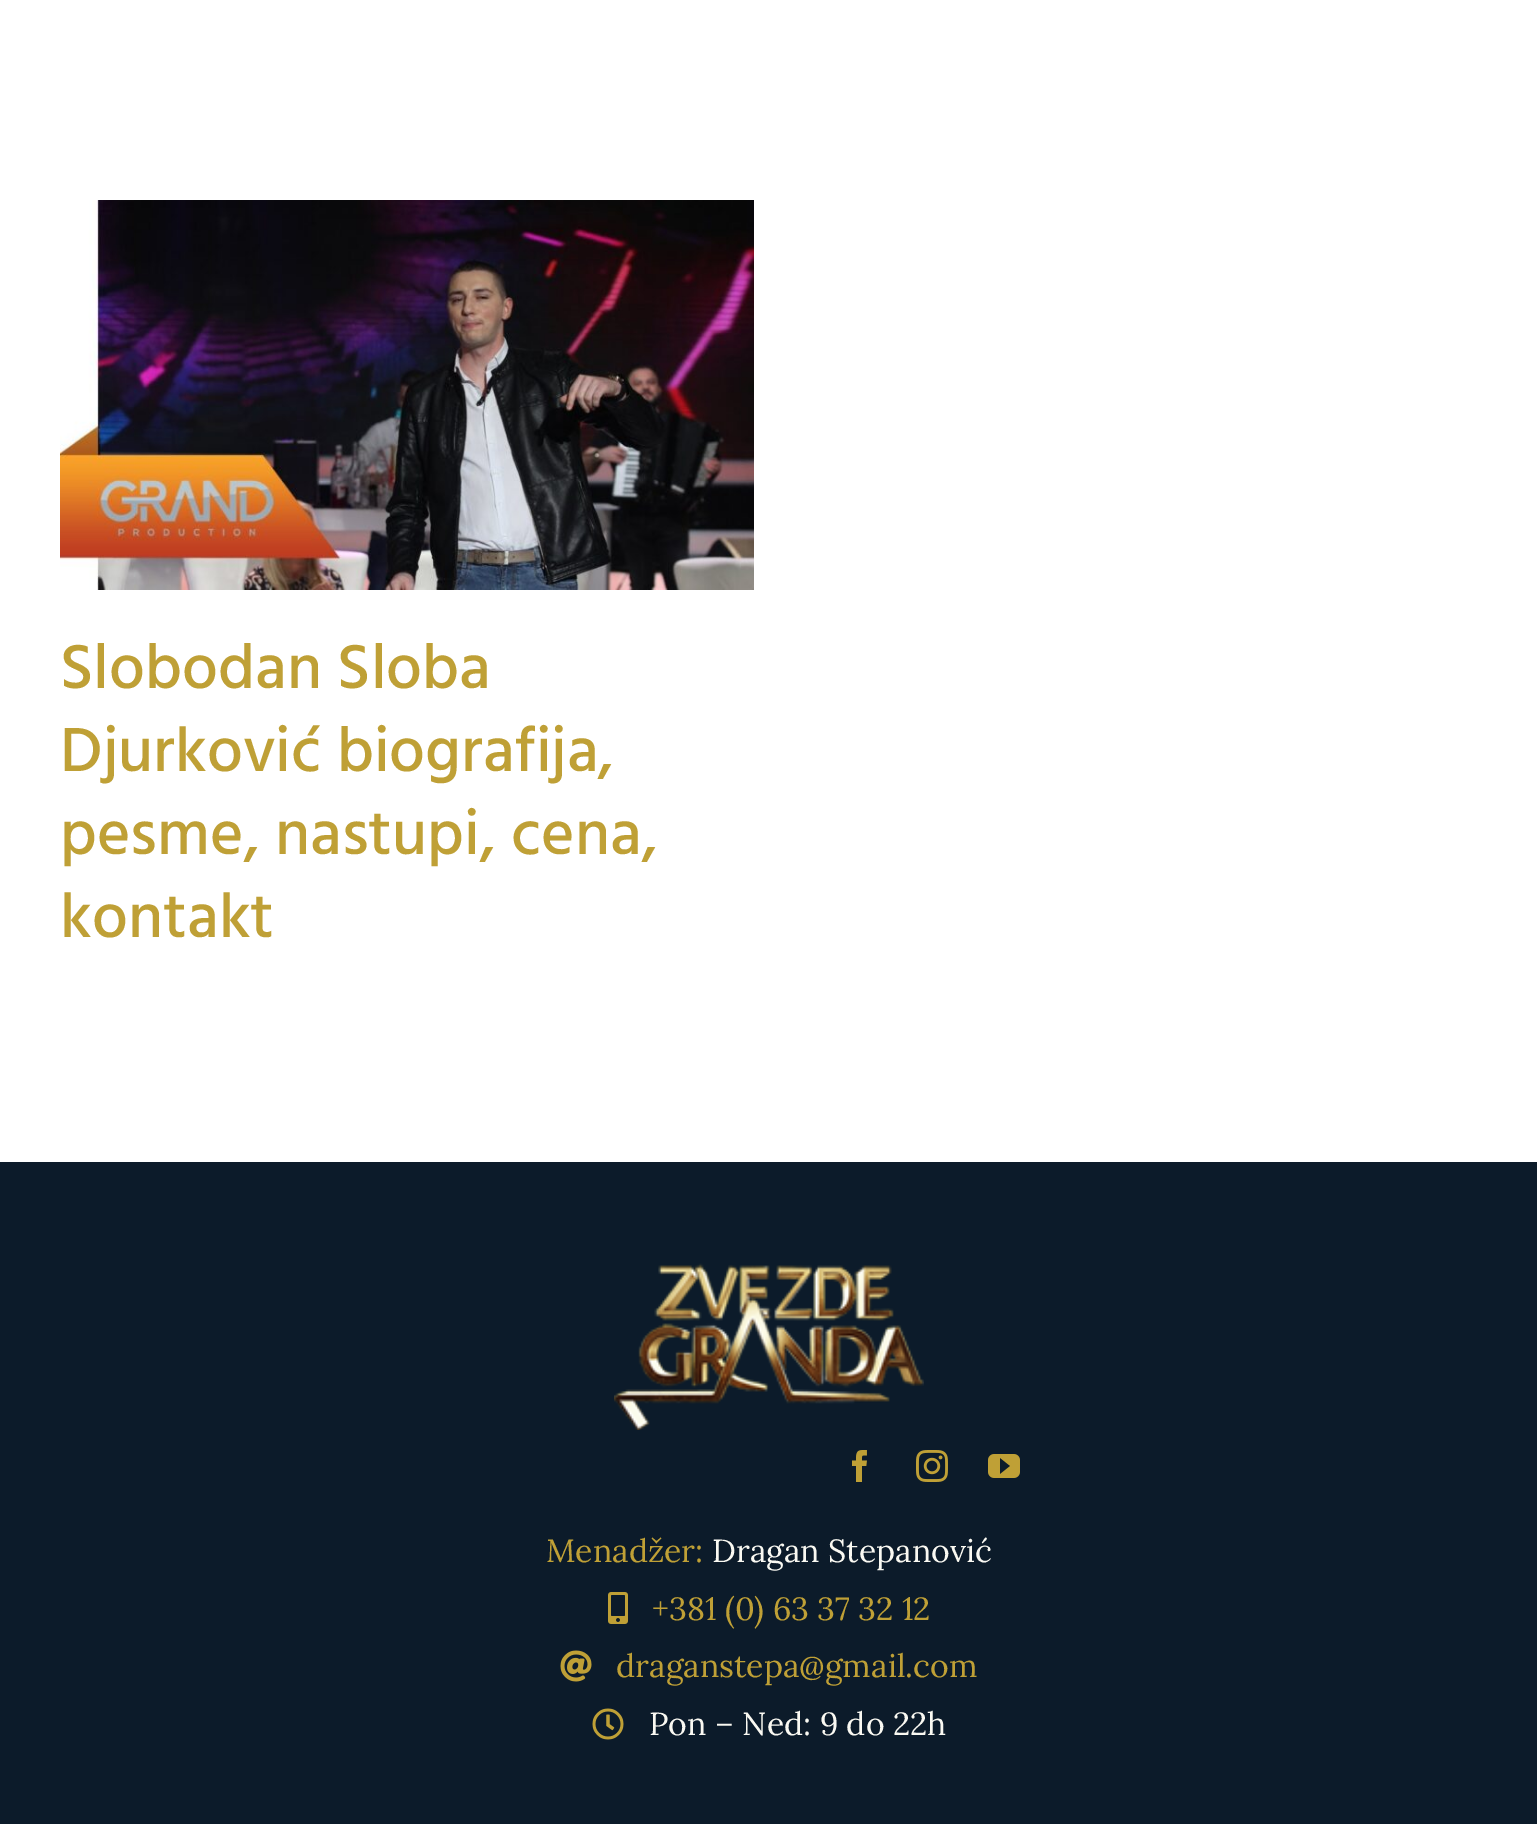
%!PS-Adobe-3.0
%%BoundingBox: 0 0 1537 1824
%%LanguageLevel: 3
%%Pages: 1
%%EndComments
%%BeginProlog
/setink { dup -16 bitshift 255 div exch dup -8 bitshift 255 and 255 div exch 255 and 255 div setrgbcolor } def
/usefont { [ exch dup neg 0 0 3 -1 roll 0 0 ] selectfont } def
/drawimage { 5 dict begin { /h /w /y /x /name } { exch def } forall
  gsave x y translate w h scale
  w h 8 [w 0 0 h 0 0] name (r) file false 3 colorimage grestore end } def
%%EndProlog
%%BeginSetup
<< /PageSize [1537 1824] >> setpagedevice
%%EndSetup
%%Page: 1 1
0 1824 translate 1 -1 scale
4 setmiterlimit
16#FFFFFF setink
0 0 1537 1824 rectfill
(img1.raw) 60 200 694 390 drawimage
/Hind-Medium 63.75 usefont
16#BFA036 setink
[
    [(Slobodan Sloba) 60 688]
    [(Djurković biografija,) 60 771]
    [(pesme, nastupi, cena,) 60 854]
    [(kontakt) 60 937]
] { aload pop moveto show } forall
16#0C1B2A setink
0 1162 1537 662 rectfill
(img2.raw) 614 1263 310 167 drawimage
(img3.raw) 852 1450 15 32 drawimage
(img4.raw) 916 1450 32 32 drawimage
(img5.raw) 988 1454 32 24 drawimage
/Lora-Regular 32 usefont
16#BFA036 setink
546 1562 moveto (Menadžer:) show
16#FAF9F2 setink
712 1562 moveto (Dragan Stepanović) show
(img6.raw) 608 1592 20 32 drawimage
16#BFA036 setink
652 1620 moveto (+381 \(0\) 63 37 32 12) show
(img7.raw) 560 1650 32 32 drawimage
616 1677 moveto (draganstepa@gmail.com) show
(img8.raw) 592 1708 32 32 drawimage
16#FAF9F2 setink
649 1735 moveto (Pon – Ned: 9 do 22h) show
showpage
%%EOF
